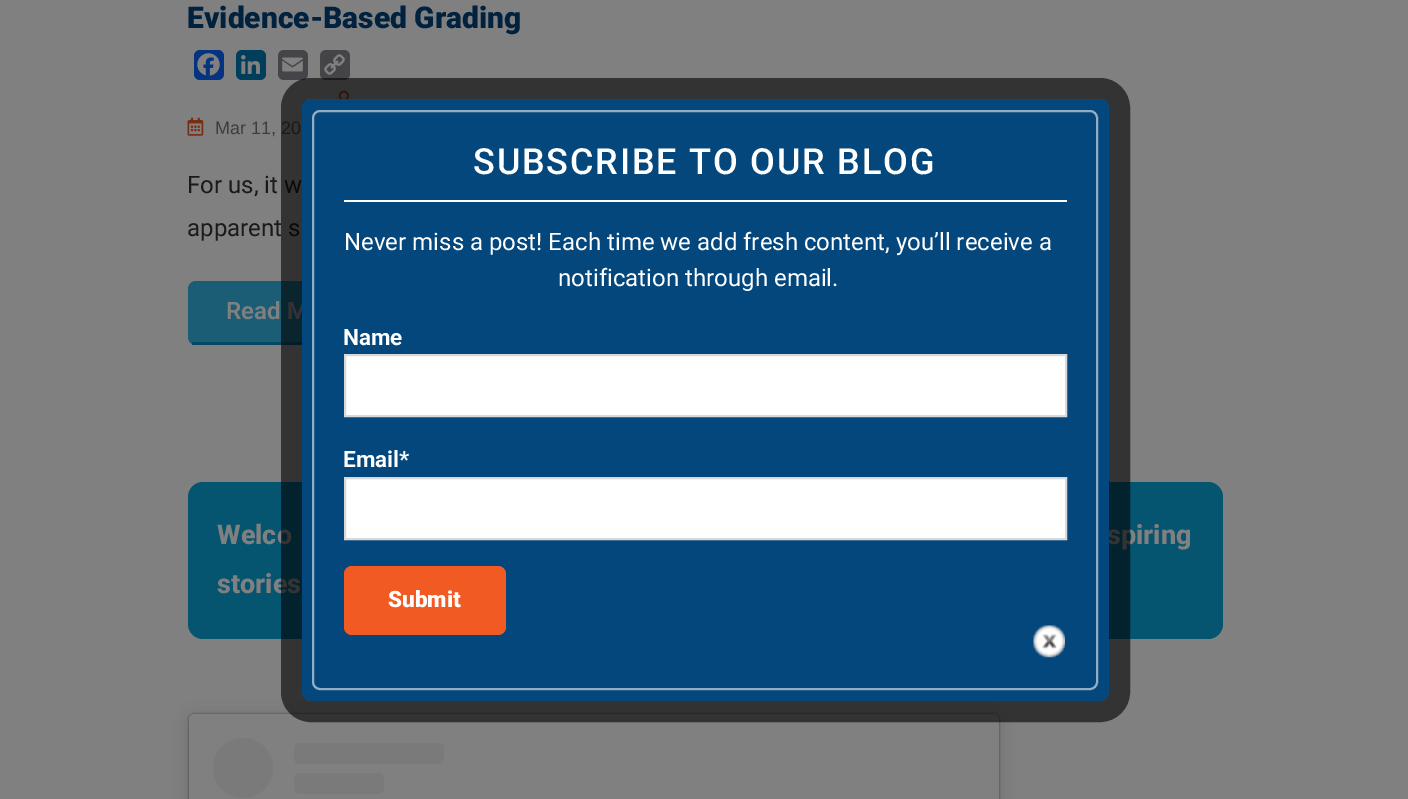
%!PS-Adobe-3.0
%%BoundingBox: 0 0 1408 799
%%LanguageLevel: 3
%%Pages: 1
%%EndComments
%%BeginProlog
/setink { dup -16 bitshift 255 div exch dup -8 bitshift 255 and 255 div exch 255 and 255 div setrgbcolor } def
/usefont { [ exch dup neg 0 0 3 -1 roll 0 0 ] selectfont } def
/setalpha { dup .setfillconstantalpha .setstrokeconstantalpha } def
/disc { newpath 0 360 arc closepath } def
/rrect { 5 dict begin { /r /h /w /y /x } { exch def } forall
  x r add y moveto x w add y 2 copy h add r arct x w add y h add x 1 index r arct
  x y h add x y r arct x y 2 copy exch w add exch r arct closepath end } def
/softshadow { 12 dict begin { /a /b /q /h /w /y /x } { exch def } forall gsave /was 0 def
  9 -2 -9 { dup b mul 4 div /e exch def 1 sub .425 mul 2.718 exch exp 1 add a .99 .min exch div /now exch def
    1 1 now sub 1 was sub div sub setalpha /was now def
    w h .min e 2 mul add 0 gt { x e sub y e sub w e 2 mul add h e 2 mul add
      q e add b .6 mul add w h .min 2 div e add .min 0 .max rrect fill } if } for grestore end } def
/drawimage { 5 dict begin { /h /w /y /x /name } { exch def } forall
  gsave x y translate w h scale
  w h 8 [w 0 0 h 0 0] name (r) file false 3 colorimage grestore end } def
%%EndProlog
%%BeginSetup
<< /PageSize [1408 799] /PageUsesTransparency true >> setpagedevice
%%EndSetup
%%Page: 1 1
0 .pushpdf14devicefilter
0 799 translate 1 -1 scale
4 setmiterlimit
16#808080 setink
0 0 1408 799 rectfill
/Roboto-Black 30 usefont
16#00223E setink
187 28 moveto (Evidence-Based Grading) show
16#043380 setink
194 50 30 30 6 rrect fill
(img1.raw) 197 53 23 23 drawimage
16#003E5B setink
236 50 30 30 6 rrect fill
(img2.raw) 241 55 19 19 drawimage
16#444548 setink
278 50 30 30 6 rrect fill
(img3.raw) 282 57 21 15 drawimage
320 50 30 30 6 rrect fill
(img4.raw) 324 54 21 21 drawimage
(img5.raw) 338 90 11 9 drawimage
(img6.raw) 187 117 17 19 drawimage
/LiberationSans-Regular 18 usefont
16#3D3D3D setink
215 134 moveto (Mar 11, 20) show
/Roboto-Regular 24 usefont
16#1A1A1A setink
187 193 moveto (For us, it w) show
187 236 moveto (apparent s) show
16#1A5D74 setink
188 281 195 64 8 rrect fill
16#054862 setink
192 342 110 3 rectfill
/Roboto-SemiBold 24 usefont
16#808080 setink
226 319 moveto (Read M) show
16#055470 setink
188 482 1035 157 15 rrect fill
/Roboto-ExtraBold 27 usefont
16#808080 setink
[
    [(Welco) 217 544]
    [(spiring) 1107 544]
    [(stories) 217 593]
] { aload pop moveto show } forall
16#000000 setink
189 716 810 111 5 7.5 0.15 softshadow
189 714 810 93 5 1 0.5 softshadow
16#808080 setink
189 714 810 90 5 rrect fill
16#7A7A7A setink
243 768 30 disc fill
294 743 150 21 6 rrect fill
294 773 90 21 6 rrect fill
0.6 setalpha
16#000000 setink
21 setlinewidth
291.5 88.5 828 623 19.5 rrect stroke
1 setalpha
16#04477C setink
302 99 807 602 9 rrect fill
16#91AEC5 setink
2 setlinewidth
313 111 784 578 7 rrect stroke
16#FFFFFF setink
344 200 723 2 rectfill
/Roboto-Medium 36 usefont
473 174 moveto 1.8 0 (SUBSCRIBE TO OUR BLOG) ashow
/Roboto-Regular 24 usefont
344 250 moveto (Never miss a post! Each time we add fresh content, you’ll receive a) show
558 286 moveto (notification through email.) show
/Roboto-Bold 22.5 usefont
343 345 moveto (Name) show
345 355 moveto 1066 355 lineto 1066 416 lineto 345 416 lineto closepath gsave fill grestore
16#D9D9D9 setink
stroke
16#FFFFFF setink
343 467 moveto (Email*) show
345 478 moveto 1066 478 lineto 1066 539 lineto 345 539 lineto closepath gsave fill grestore
16#D9D9D9 setink
stroke
16#F15A22 setink
344 566 162 69 8 rrect fill
/Roboto-Black 22.5 usefont
16#FFFFFF setink
388 607 moveto (Submit) show
(img7.raw) 1033 625 32 33 drawimage
.poppdf14devicefilter showpage
%%EOF
